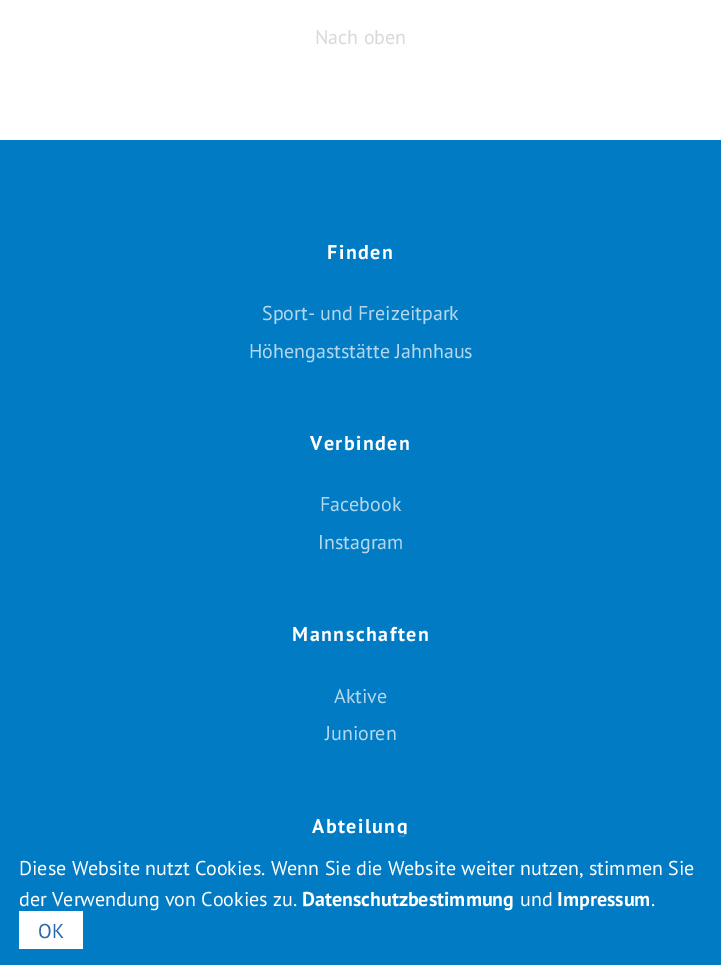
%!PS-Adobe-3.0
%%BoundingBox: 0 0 721 965
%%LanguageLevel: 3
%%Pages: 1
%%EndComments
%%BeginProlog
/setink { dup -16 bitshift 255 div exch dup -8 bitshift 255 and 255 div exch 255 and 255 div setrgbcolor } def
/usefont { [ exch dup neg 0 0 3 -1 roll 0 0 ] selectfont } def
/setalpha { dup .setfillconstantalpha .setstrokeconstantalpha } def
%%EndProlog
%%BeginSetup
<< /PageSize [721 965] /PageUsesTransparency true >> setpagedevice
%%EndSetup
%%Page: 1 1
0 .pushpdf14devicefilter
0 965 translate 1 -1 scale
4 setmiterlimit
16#FFFFFF setink
0 0 721 965 rectfill
/PTSans-Regular 20 usefont
16#D9D9D9 setink
315 44 moveto (Nach oben) show
16#007BC4 setink
0 140 721 825 rectfill
/PTSans-Bold 20 usefont
16#FFFFFF setink
327 259 moveto 1.5 0 (Finden) ashow
/PTSans-Regular 20 usefont
16#B3D7ED setink
262 320 moveto (Sport- und Freizeitpark) show
249 358 moveto (Höhengaststätte Jahnhaus) show
/PTSans-Bold 20 usefont
16#FFFFFF setink
310 450 moveto 1.5 0 (Verbinden) ashow
/PTSans-Regular 20 usefont
16#B3D7ED setink
320 511 moveto (Facebook) show
318 549 moveto (Instagram) show
/PTSans-Bold 20 usefont
16#FFFFFF setink
292 641 moveto 1.5 0 (Mannschaften) ashow
/PTSans-Regular 20 usefont
16#B3D7ED setink
334 703 moveto (Aktive) show
325 740 moveto (Junioren) show
/PTSans-Bold 20 usefont
16#FFFFFF setink
312 833 moveto 1.5 0 (Abteilung) ashow
0.85 setalpha
16#007AC4 setink
398 834 9 4 rectfill
/PTSans-Regular 20 usefont
1 setalpha
16#FFFFFF setink
19 875 moveto (Diese Website nutzt Cookies. Wenn Sie die Website weiter nutzen, stimmen Sie) show
19 906 moveto (der Verwendung von Cookies zu.) show
/PTSans-Bold 20 usefont
302 906 moveto (Datenschutzbestimmung) show
/PTSans-Regular 20 usefont
520 906 moveto (und) show
/PTSans-Bold 20 usefont
557 906 moveto (Impressum) show
/PTSans-Regular 20 usefont
651 906 moveto (.) show
19 911 64 38 rectfill
16#2967B0 setink
38 938 moveto (OK) show
.poppdf14devicefilter showpage
%%EOF
